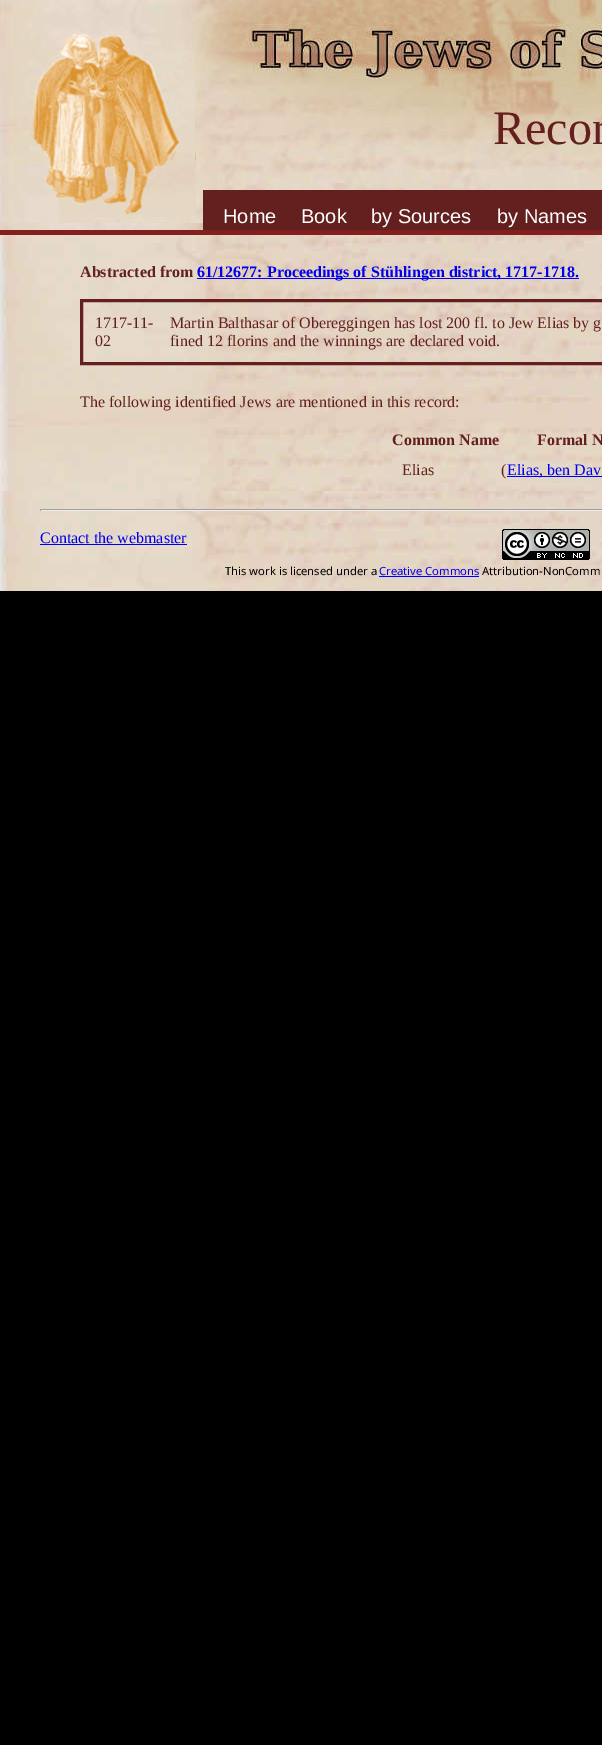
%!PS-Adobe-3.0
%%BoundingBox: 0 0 602 1745
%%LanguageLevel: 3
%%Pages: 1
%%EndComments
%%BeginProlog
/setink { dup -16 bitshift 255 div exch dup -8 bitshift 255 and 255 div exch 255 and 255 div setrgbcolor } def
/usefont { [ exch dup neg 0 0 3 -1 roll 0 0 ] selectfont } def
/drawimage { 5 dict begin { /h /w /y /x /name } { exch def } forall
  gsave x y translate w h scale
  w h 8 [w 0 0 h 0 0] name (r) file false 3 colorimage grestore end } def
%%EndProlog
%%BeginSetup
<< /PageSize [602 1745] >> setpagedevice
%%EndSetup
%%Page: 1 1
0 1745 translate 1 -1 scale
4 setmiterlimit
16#000000 setink
0 0 602 1745 rectfill
(img1.raw) 0 0 602 230 drawimage
16#831F1F setink
0 230 602 5 rectfill
/LiberationSerif-Regular 48 usefont
16#641F1F setink
493 144 moveto (Recor) show
203 190 399 40 rectfill
/LiberationSans-Regular 20 usefont
16#FFFFFF setink
[
    [(Home) 223 223]
    [(Book) 301 223]
    [(by Sources) 371 223]
    [(by Names) 497 223]
] { aload pop moveto show } forall
(img2.raw) 0 235 602 256 drawimage
/LiberationSerif-Bold 16 usefont
16#641F1F setink
80 277 moveto (Abstracted from) show
16#0000EE setink
197 278 382 1 rectfill
197 277 moveto (61/12677: Proceedings of Stühlingen district, 1717-1718.) show
16#641F1F setink
3 setlinewidth
81.5 300.5 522 63 rectstroke
/LiberationSerif-Regular 16 usefont
[
    [(1717-11-) 95 328]
    [(02) 95 346]
    [(Martin Balthasar of Obereggingen has lost 200 fl. to Jew Elias by g) 170 328]
    [(fined 12 florins and the winnings are declared void.) 170 346]
    [(The following identified Jews are mentioned in this record:) 80 407]
] { aload pop moveto show } forall
/LiberationSerif-Bold 16 usefont
392 445 moveto (Common Name) show
537 445 moveto (Formal N) show
/LiberationSerif-Regular 16 usefont
402 475 moveto (Elias) show
501 475 moveto (\() show
16#0000EE setink
507 476 95 1 rectfill
507 475 moveto (Elias, ben Dav) show
(img3.raw) 0 491 602 100 drawimage
[
    [40 509 562 1 16#9F9F9F]
    [40 510 562 1 16#EEEEEE]
    [40 509 1 2 16#9F9F9F]
] { aload pop setink rectfill } forall
16#0000EE setink
40 543 moveto (Contact the webmaster) show
40 544 147 1 rectfill
(img4.raw) 502 529 88 31 drawimage
/NotoSans-Regular 11.25 usefont
16#000000 setink
225 575 moveto (This work is licensed under a) show
16#0000EE setink
379 575 moveto (Creative Commons) show
379 576 100 1 rectfill
16#000000 setink
482 575 moveto (Attribution-NonComm) show
showpage
%%EOF
